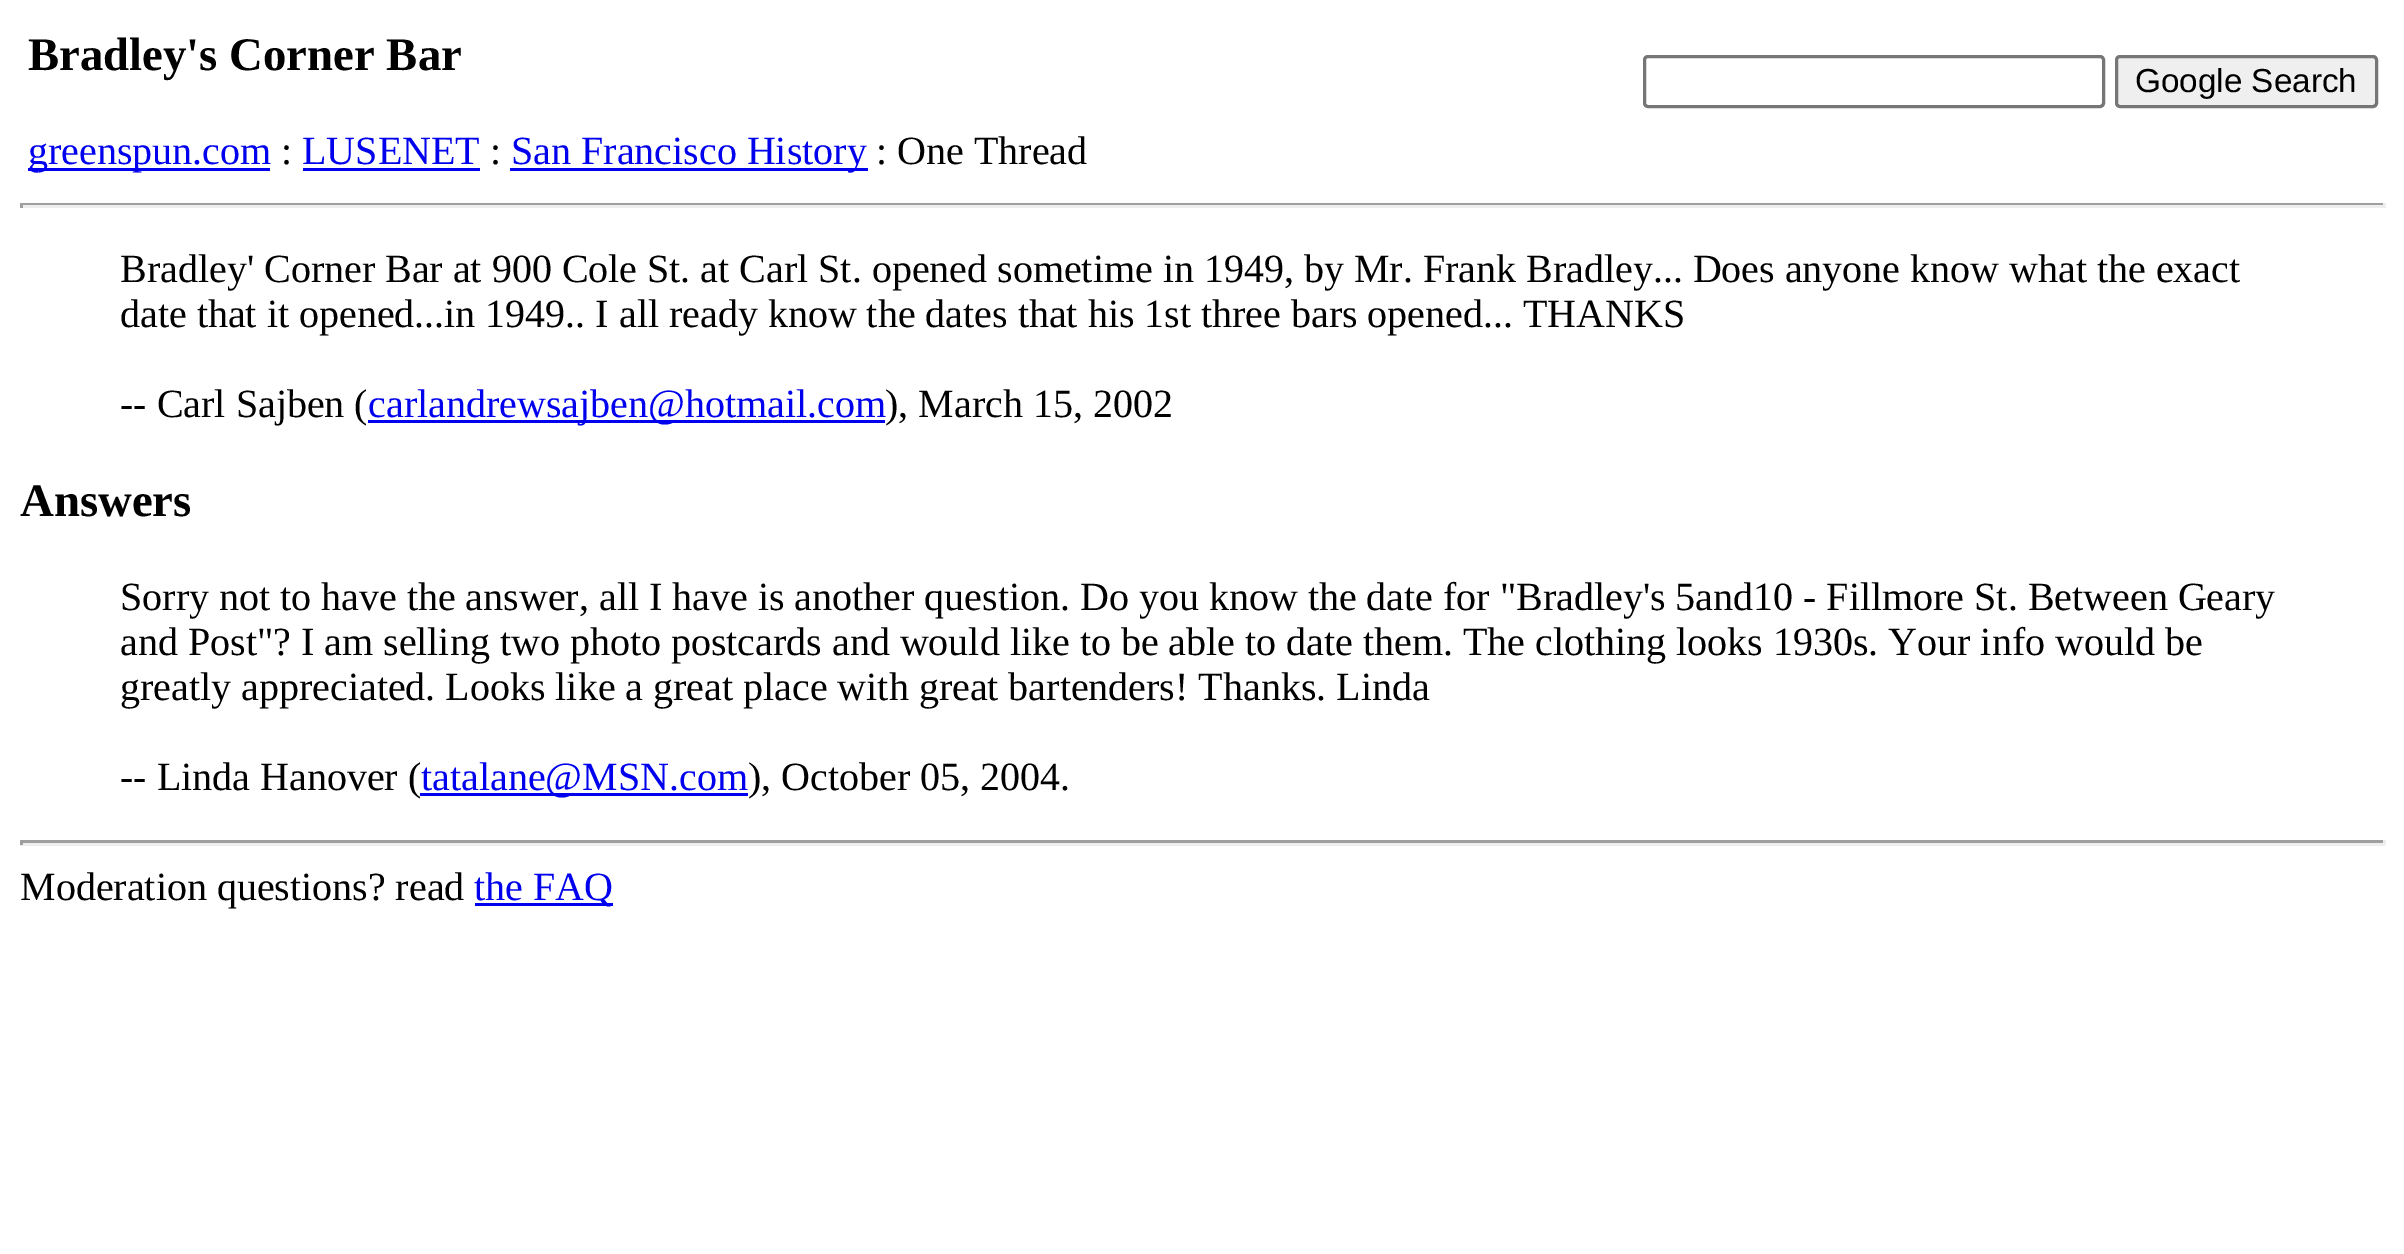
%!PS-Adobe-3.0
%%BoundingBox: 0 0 2404 1254
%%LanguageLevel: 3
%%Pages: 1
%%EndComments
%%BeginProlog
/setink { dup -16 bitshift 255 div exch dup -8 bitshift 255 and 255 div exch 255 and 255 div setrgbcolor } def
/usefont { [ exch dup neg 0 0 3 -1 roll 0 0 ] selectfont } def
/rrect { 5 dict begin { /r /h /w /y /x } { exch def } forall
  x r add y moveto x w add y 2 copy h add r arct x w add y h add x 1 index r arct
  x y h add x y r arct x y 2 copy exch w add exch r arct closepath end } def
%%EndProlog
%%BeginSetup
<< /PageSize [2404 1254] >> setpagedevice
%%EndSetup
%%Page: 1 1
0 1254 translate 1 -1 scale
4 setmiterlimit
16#FFFFFF setink
0 0 2404 1254 rectfill
/LiberationSerif-Bold 46.75 usefont
16#000000 setink
28 70 moveto (Bradley's Corner Bar) show
16#0000EE setink
28 168 242 3 rectfill
/LiberationSerif-Regular 40 usefont
28 164 moveto (greenspun.com) show
16#000000 setink
281 164 moveto (:) show
16#0000EE setink
302 164 moveto (LUSENET) show
303 168 177 3 rectfill
16#000000 setink
490 164 moveto (:) show
16#0000EE setink
510 168 358 3 rectfill
511 164 moveto (San Francisco History) show
16#000000 setink
876 164 moveto (: One Thread) show
16#767676 setink
3 setlinewidth
1644.5 56.5 459 50 3.5 rrect stroke
16#EFEFEF setink
2116.5 56.5 260 50 3.5 rrect gsave fill grestore
16#767676 setink
stroke
/LiberationSans-Regular 33.25 usefont
16#000000 setink
2135 92 moveto (Google Search) show
[
    [20 203 2365 2 16#9F9F9F]
    [2383 203 3 5 16#EEEEEE]
    [20 205 2365 3 16#EEEEEE]
    [20 203 3 5 16#9F9F9F]
] { aload pop setink rectfill } forall
/LiberationSerif-Regular 40 usefont
16#000000 setink
[
    [(Bradley' Corner Bar at 900 Cole St. at Carl St. opened sometime in 1949, by Mr. Frank Bradley... Does anyone know what the exact) 120 282]
    [(date that it opened...in 1949.. I all ready know the dates that his 1st three bars opened... THANKS) 120 327]
    [(-- Carl Sajben \() 120 417]
] { aload pop moveto show } forall
16#0000EE setink
368 420 517 3 rectfill
368 417 moveto (carlandrewsajben@hotmail.com) show
16#000000 setink
885 417 moveto (\), March 15, 2002) show
/LiberationSerif-Bold 46.75 usefont
20 516 moveto (Answers) show
/LiberationSerif-Regular 40 usefont
[
    [(Sorry not to have the answer, all I have is another question. Do you know the date for "Bradley's 5and10 - Fillmore St. Between Geary) 120 610]
    [(and Post"? I am selling two photo postcards and would like to be able to date them. The clothing looks 1930s. Your info would be) 120 655]
    [(greatly appreciated. Looks like a great place with great bartenders! Thanks. Linda) 120 700]
    [(-- Linda Hanover \() 120 790]
] { aload pop moveto show } forall
16#0000EE setink
420 793 328 3 rectfill
421 790 moveto (tatalane@MSN.com) show
16#000000 setink
748 790 moveto (\), October 05, 2004.) show
[
    [20 840 2365 3 16#9F9F9F]
    [2383 840 3 5 16#EEEEEE]
    [20 843 2365 3 16#EEEEEE]
    [20 840 3 5 16#9F9F9F]
] { aload pop setink rectfill } forall
16#000000 setink
20 900 moveto (Moderation questions? read) show
16#0000EE setink
475 903 138 3 rectfill
474 900 moveto (the FAQ) show
showpage
%%EOF
